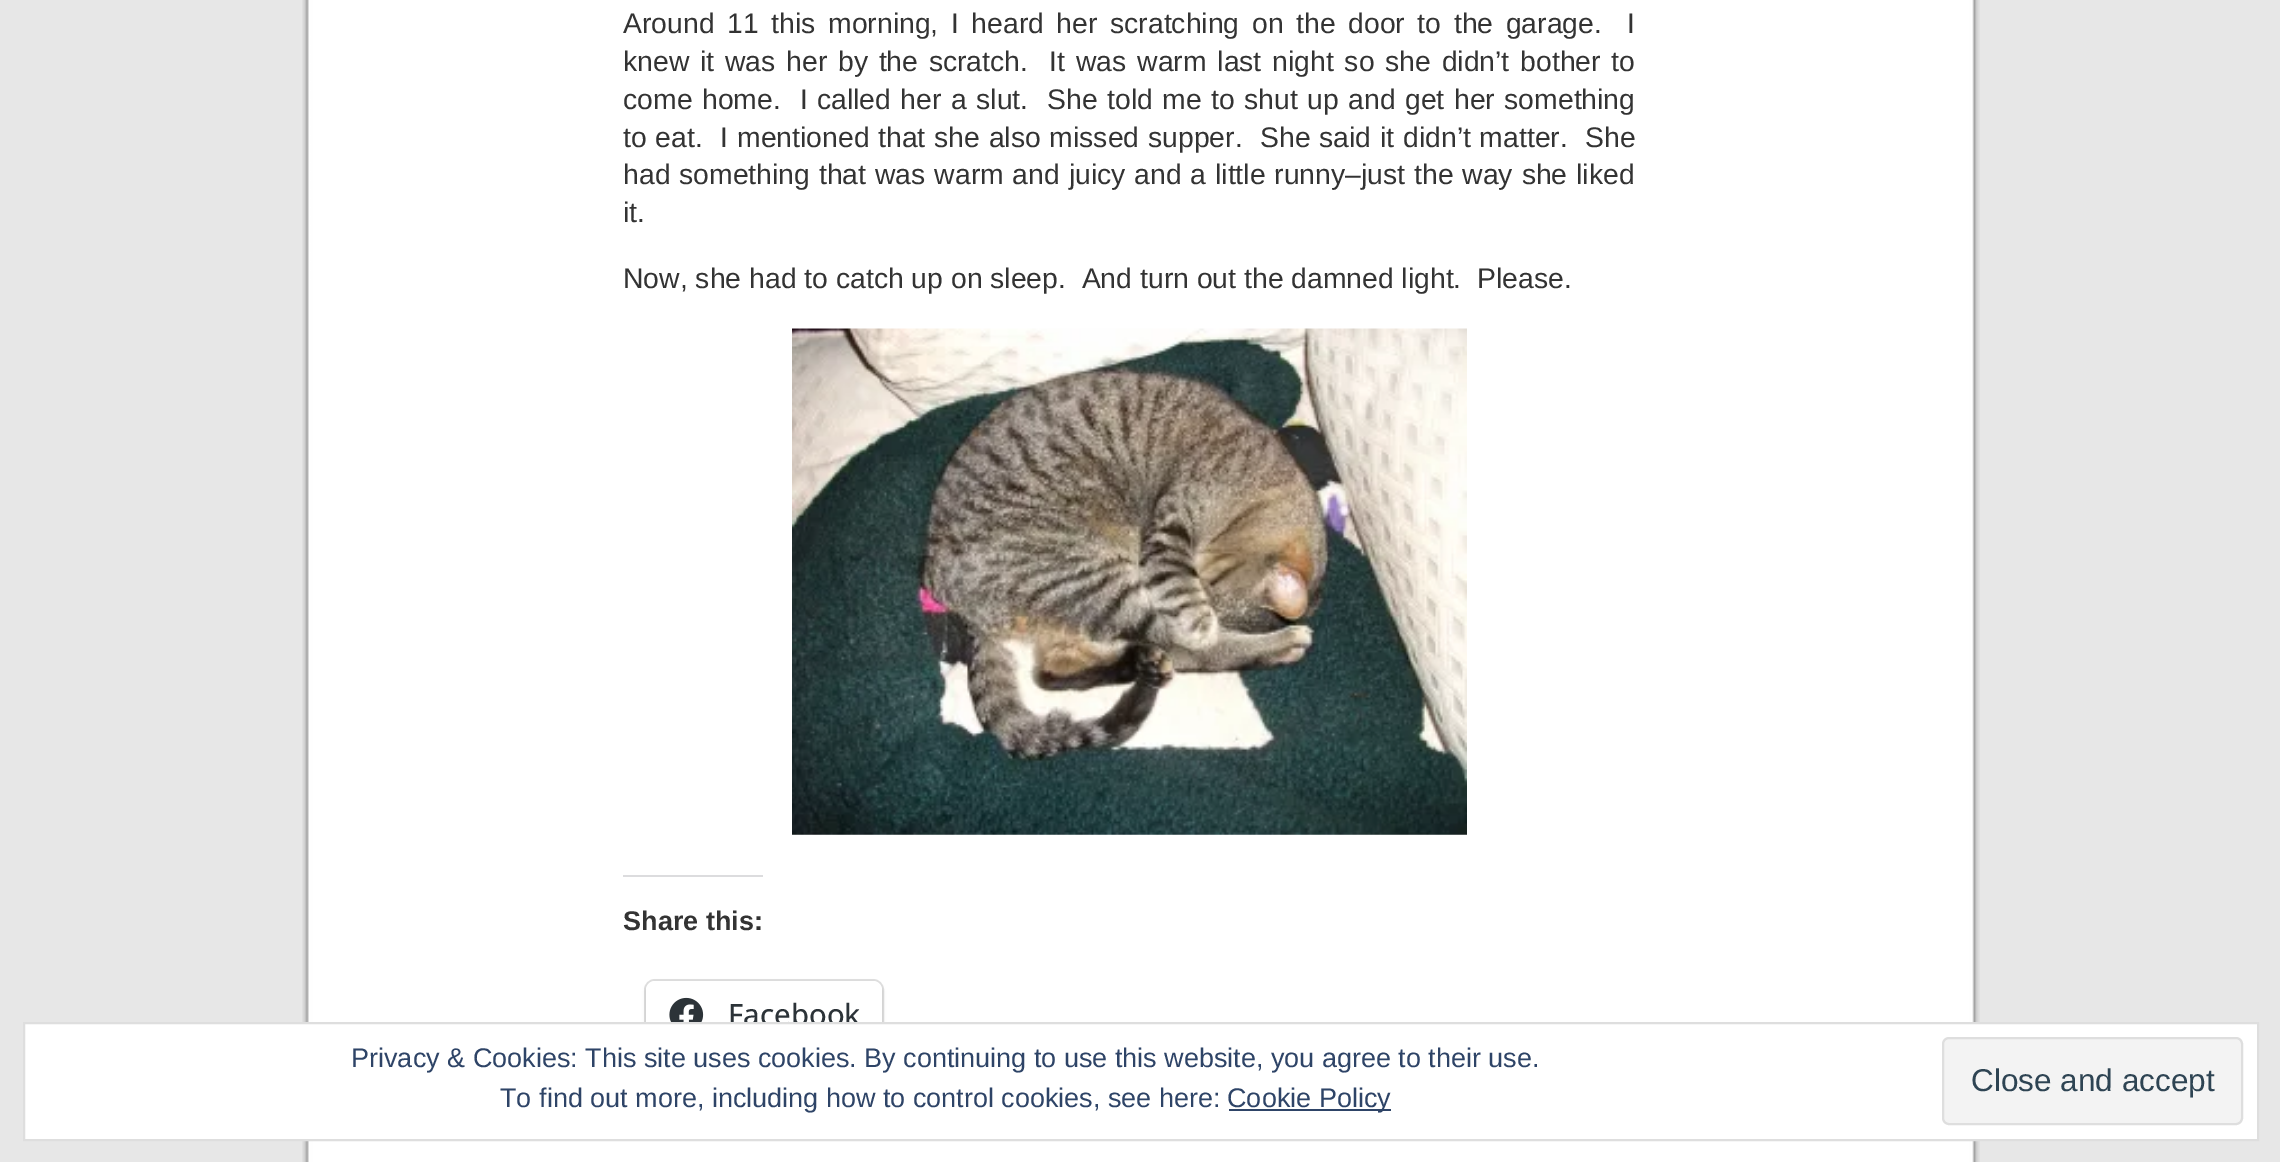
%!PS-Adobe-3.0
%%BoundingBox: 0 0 2280 1162
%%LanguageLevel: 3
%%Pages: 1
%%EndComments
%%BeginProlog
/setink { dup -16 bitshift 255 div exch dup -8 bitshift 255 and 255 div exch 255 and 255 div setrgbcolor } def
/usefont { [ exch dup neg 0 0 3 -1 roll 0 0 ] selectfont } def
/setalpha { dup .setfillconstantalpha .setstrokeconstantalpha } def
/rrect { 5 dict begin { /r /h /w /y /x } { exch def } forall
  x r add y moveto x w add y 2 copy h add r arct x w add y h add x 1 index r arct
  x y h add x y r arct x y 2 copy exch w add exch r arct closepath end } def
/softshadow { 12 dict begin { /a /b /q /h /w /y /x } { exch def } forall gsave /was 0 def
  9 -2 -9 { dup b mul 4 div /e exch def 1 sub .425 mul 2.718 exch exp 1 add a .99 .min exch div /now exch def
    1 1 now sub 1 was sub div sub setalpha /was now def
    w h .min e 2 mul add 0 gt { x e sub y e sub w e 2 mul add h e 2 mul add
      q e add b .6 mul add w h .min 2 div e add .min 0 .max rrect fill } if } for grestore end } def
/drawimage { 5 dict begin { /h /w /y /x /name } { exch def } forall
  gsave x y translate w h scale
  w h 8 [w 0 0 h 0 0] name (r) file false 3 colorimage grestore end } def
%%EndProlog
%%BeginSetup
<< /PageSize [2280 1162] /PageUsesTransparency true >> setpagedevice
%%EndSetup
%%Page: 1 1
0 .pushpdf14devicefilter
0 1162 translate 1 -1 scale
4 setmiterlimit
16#E7E7E7 setink
0 0 2280 1162 rectfill
(img1.raw) 302 0 1678 1162 drawimage
/LiberationSans-Regular 28.35 usefont
16#333333 setink
623 33 moveto 4.75 0 32 (Around 11 this morning, I heard her scratching on the door to the garage.  I) widthshow
623 71 moveto 2.9 0 32 (knew it was her by the scratch.  It was warm last night so she didn’t bother to) widthshow
623 109 moveto 1.6 0 32 (come home.  I called her a slut.  She told me to shut up and get her something) widthshow
623 147 moveto 0.9 0 32 (to eat.  I mentioned that she also missed supper.  She said it didn’t matter.  She) widthshow
623 184 moveto 1 0 32 (had something that was warm and juicy and a little runny–just the way she liked) widthshow
623 222 moveto (it.) show
623 288 moveto (Now, she had to catch up on sleep.  And turn out the damned light.  Please.) show
(img2.raw) 792 328 675 507 drawimage
16#DCDCDE setink
623 875 140 2 rectfill
/LiberationSans-Bold 27 usefont
16#333333 setink
623 930 moveto (Share this:) show
16#E0E0E0 setink
2 setlinewidth
645 980 238 70 10 rrect stroke
16#000000 setink
646 983 236 68 9 2 0.12 softshadow
16#FFFFFF setink
646 981 236 68 9 rrect fill
(img3.raw) 669 997 35 25 drawimage
/OpenSans-Medium 29.25 usefont
16#2C3338 setink
728 1025 moveto (Facebook) show
16#FFFFFF setink
24 1023 moveto 2258 1023 lineto 2258 1140 lineto 24 1140 lineto closepath gsave fill grestore
16#DEDEDE setink
stroke
/LiberationSans-Regular 27 usefont
16#2E4467 setink
351 1067 moveto (Privacy & Cookies: This site uses cookies. By continuing to use this website, you agree to their use.) show
500 1107 moveto (To find out more, including how to control cookies, see here:) show
1229 1109 162 2 rectfill
1227 1107 moveto (Cookie Policy) show
16#F3F3F3 setink
1943 1038 299 86 6 rrect gsave fill grestore
16#DEDEDE setink
stroke
/LiberationSans-Regular 31.5 usefont
16#2E4453 setink
1971 1091 moveto (Close and accept) show
.poppdf14devicefilter showpage
%%EOF
